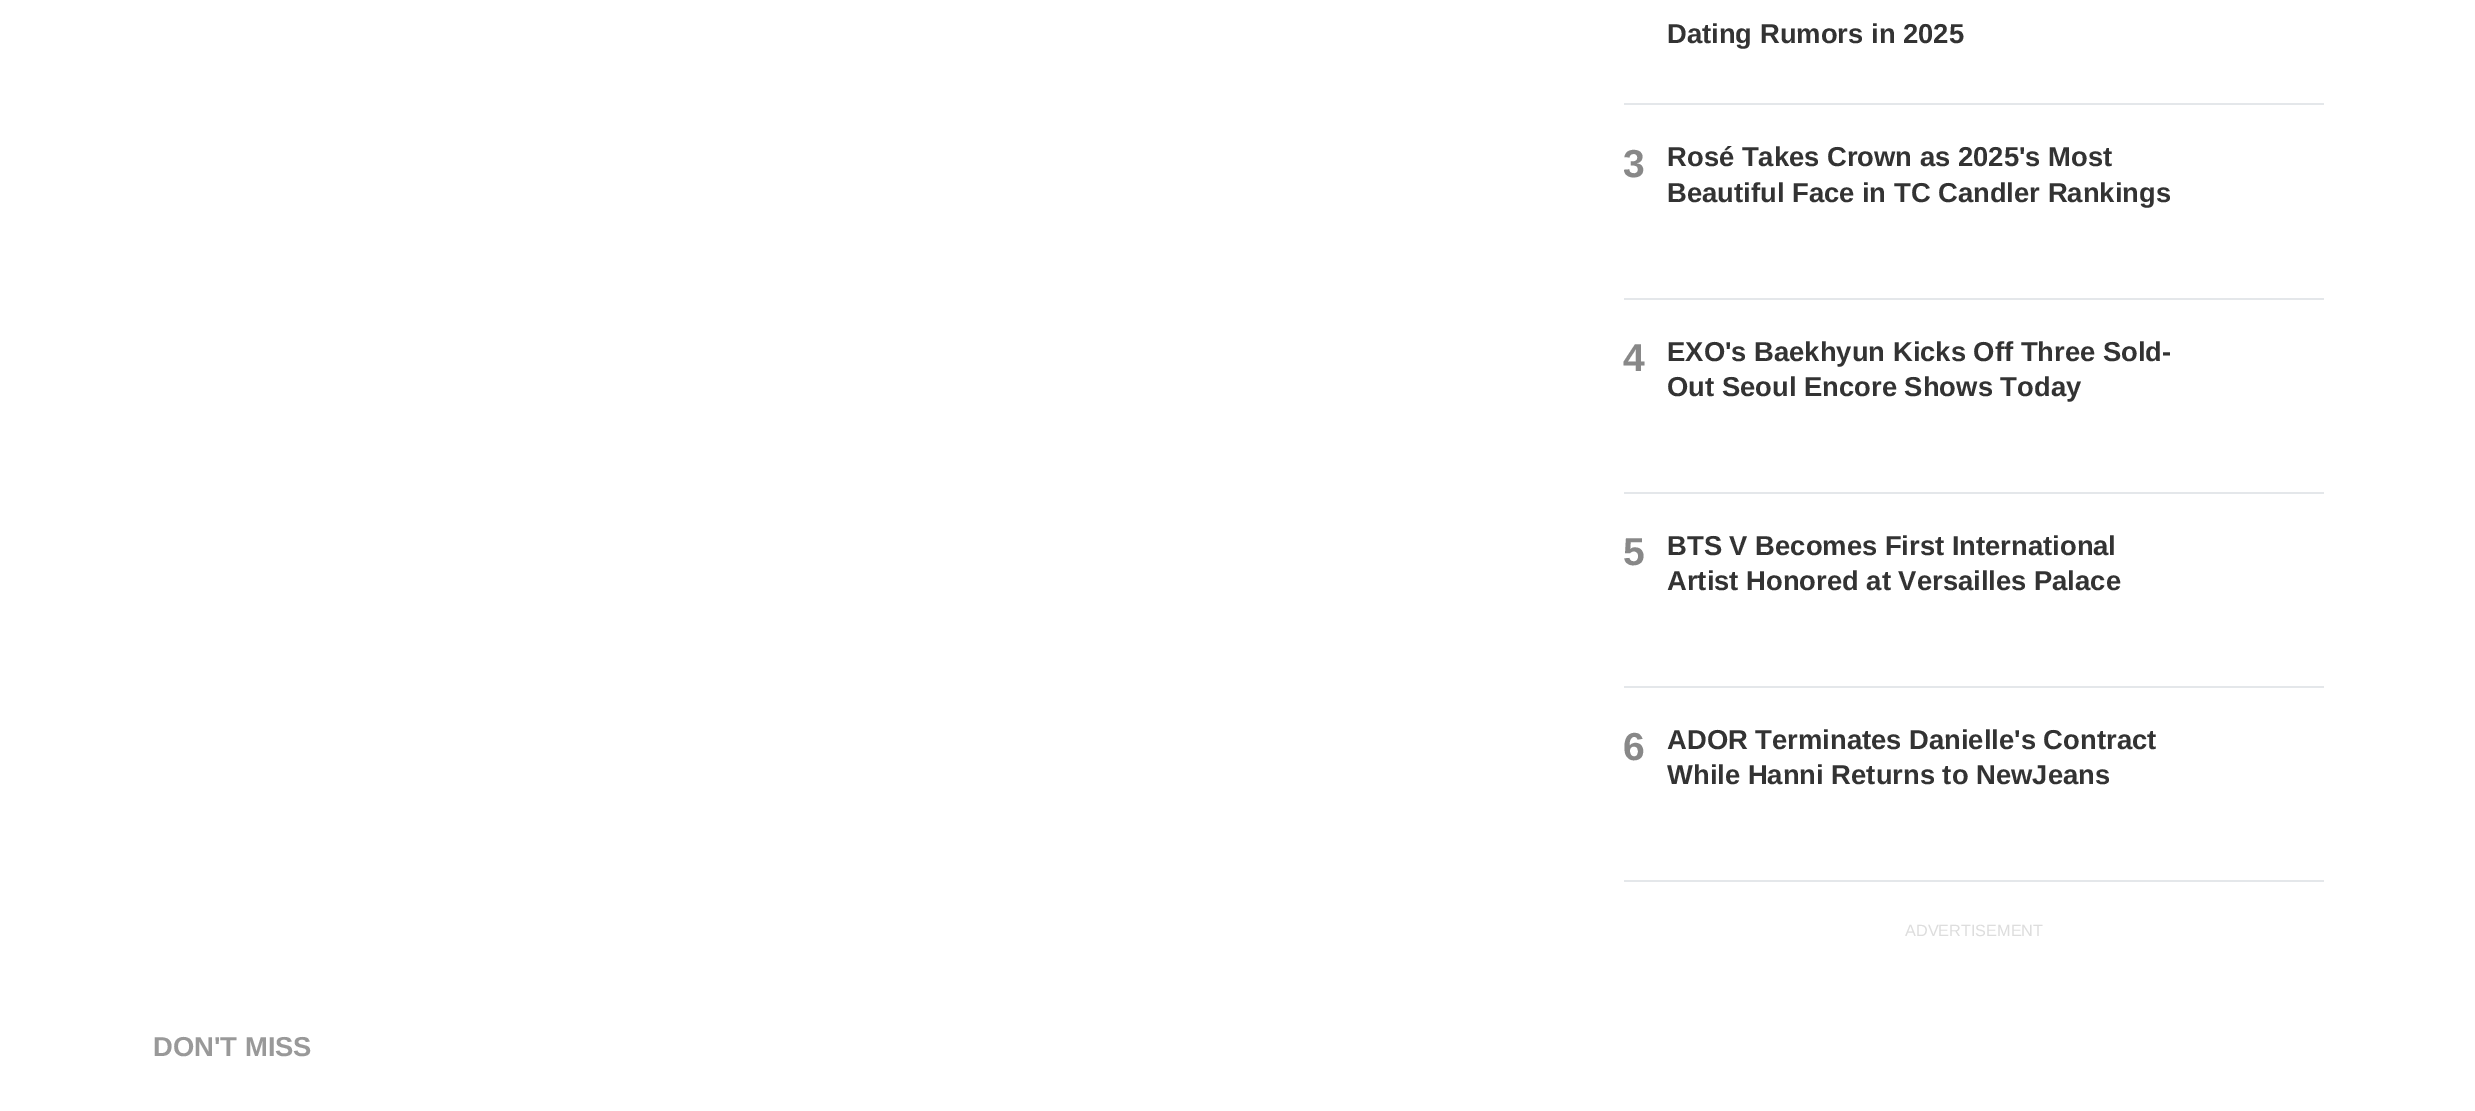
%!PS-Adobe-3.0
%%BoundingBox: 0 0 2475 1111
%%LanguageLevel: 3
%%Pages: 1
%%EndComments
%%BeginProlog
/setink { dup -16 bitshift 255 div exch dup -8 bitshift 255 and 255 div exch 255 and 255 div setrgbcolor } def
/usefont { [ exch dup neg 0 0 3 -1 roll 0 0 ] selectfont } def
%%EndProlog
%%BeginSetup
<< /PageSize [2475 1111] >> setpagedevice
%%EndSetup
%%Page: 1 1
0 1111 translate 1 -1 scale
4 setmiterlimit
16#FFFFFF setink
0 0 2475 1111 rectfill
16#E4E7EA setink
1624 103 700 2 rectfill
/LiberationSans-Bold 27.4 usefont
16#333333 setink
1667 43 moveto (Dating Rumors in 2025) show
16#E4E7EA setink
1624 298 700 2 rectfill
/LiberationSans-Bold 39 usefont
16#888888 setink
1623 177 moveto (3) show
/LiberationSans-Bold 27.4 usefont
16#333333 setink
1667 166 moveto (Rosé Takes Crown as 2025's Most) show
1667 202 moveto (Beautiful Face in TC Candler Rankings) show
16#E4E7EA setink
1624 492 700 2 rectfill
/LiberationSans-Bold 39 usefont
16#888888 setink
1623 371 moveto (4) show
/LiberationSans-Bold 27.4 usefont
16#333333 setink
1667 361 moveto (EXO's Baekhyun Kicks Off Three Sold-) show
1667 396 moveto (Out Seoul Encore Shows Today) show
16#E4E7EA setink
1624 686 700 2 rectfill
/LiberationSans-Bold 39 usefont
16#888888 setink
1623 565 moveto (5) show
/LiberationSans-Bold 27.4 usefont
16#333333 setink
1667 555 moveto (BTS V Becomes First International) show
1667 590 moveto (Artist Honored at Versailles Palace) show
16#E4E7EA setink
1624 880 700 2 rectfill
/LiberationSans-Bold 39 usefont
16#888888 setink
1623 760 moveto (6) show
/LiberationSans-Bold 27.4 usefont
16#333333 setink
1667 749 moveto (ADOR Terminates Danielle's Contract) show
1667 784 moveto (While Hanni Returns to NewJeans) show
/LiberationSans-Regular 16.25 usefont
16#DDDDDD setink
1905 936 moveto (ADVERTISEMENT) show
/LiberationSans-Bold 27.4 usefont
16#999999 setink
153 1056 moveto (DON'T MISS) show
showpage
%%EOF
